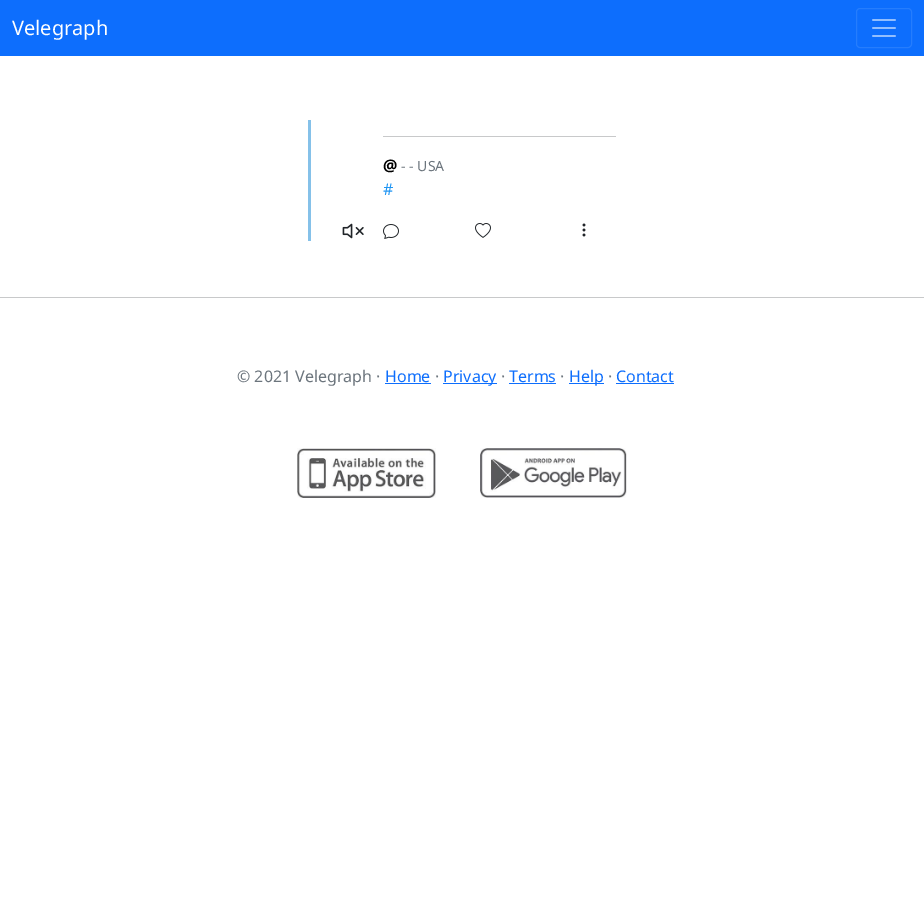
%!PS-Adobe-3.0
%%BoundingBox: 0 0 924 920
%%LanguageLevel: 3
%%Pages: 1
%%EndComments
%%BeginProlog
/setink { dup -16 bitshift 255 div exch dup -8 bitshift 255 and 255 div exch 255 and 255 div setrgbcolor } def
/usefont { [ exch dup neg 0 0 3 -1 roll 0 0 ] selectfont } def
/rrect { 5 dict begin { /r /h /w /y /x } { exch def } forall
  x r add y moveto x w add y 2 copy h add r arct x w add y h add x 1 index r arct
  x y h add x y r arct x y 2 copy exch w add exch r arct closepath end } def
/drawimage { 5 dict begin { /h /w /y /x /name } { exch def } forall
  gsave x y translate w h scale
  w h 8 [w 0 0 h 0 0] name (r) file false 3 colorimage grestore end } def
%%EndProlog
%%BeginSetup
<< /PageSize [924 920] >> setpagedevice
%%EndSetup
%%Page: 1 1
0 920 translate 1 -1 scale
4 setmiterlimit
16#FFFFFF setink
0 0 924 920 rectfill
16#0D6EFD setink
0 0 924 56 rectfill
/NotoSans-Regular 20 usefont
16#FFFFFF setink
12 35 moveto (Velegraph) show
16#257DFD setink
856.5 8.5 55 39 3.5 rrect stroke
(img1.raw) 872 19 24 18 drawimage
16#85C1E9 setink
308 120 3 121 rectfill
16#C8C9CA setink
383 136 233 1 rectfill
/NotoSans-Bold 16 usefont
16#000000 setink
383 171 moveto (@) show
/NotoSans-Regular 14 usefont
16#6C757D setink
401 171 moveto (- - USA) show
/NotoSans-Regular 16 usefont
16#2196F3 setink
383 195 moveto (#) show
(img2.raw) 342 223 22 16 drawimage
(img3.raw) 383 224 16 15 drawimage
(img4.raw) 475 223 16 15 drawimage
(img5.raw) 582 223 4 14 drawimage
16#C8C9CA setink
0 297 924 1 rectfill
16#6C757D setink
237 382 moveto (© 2021 Velegraph ·) show
16#0D6EFD setink
385 382 moveto (Home) show
385 383 46 1 rectfill
16#6C757D setink
435 382 moveto (·) show
16#0D6EFD setink
443 383 54 1 rectfill
443 382 moveto (Privacy) show
16#6C757D setink
501 382 moveto (·) show
16#0D6EFD setink
509 382 moveto (Terms) show
509 383 47 1 rectfill
16#6C757D setink
560 382 moveto (·) show
16#0D6EFD setink
569 383 35 1 rectfill
569 382 moveto (Help) show
16#6C757D setink
608 382 moveto (·) show
16#0D6EFD setink
616 382 moveto (Contact) show
616 383 58 1 rectfill
(img6.raw) 297 448 139 50 drawimage
(img7.raw) 480 448 147 50 drawimage
showpage
%%EOF
